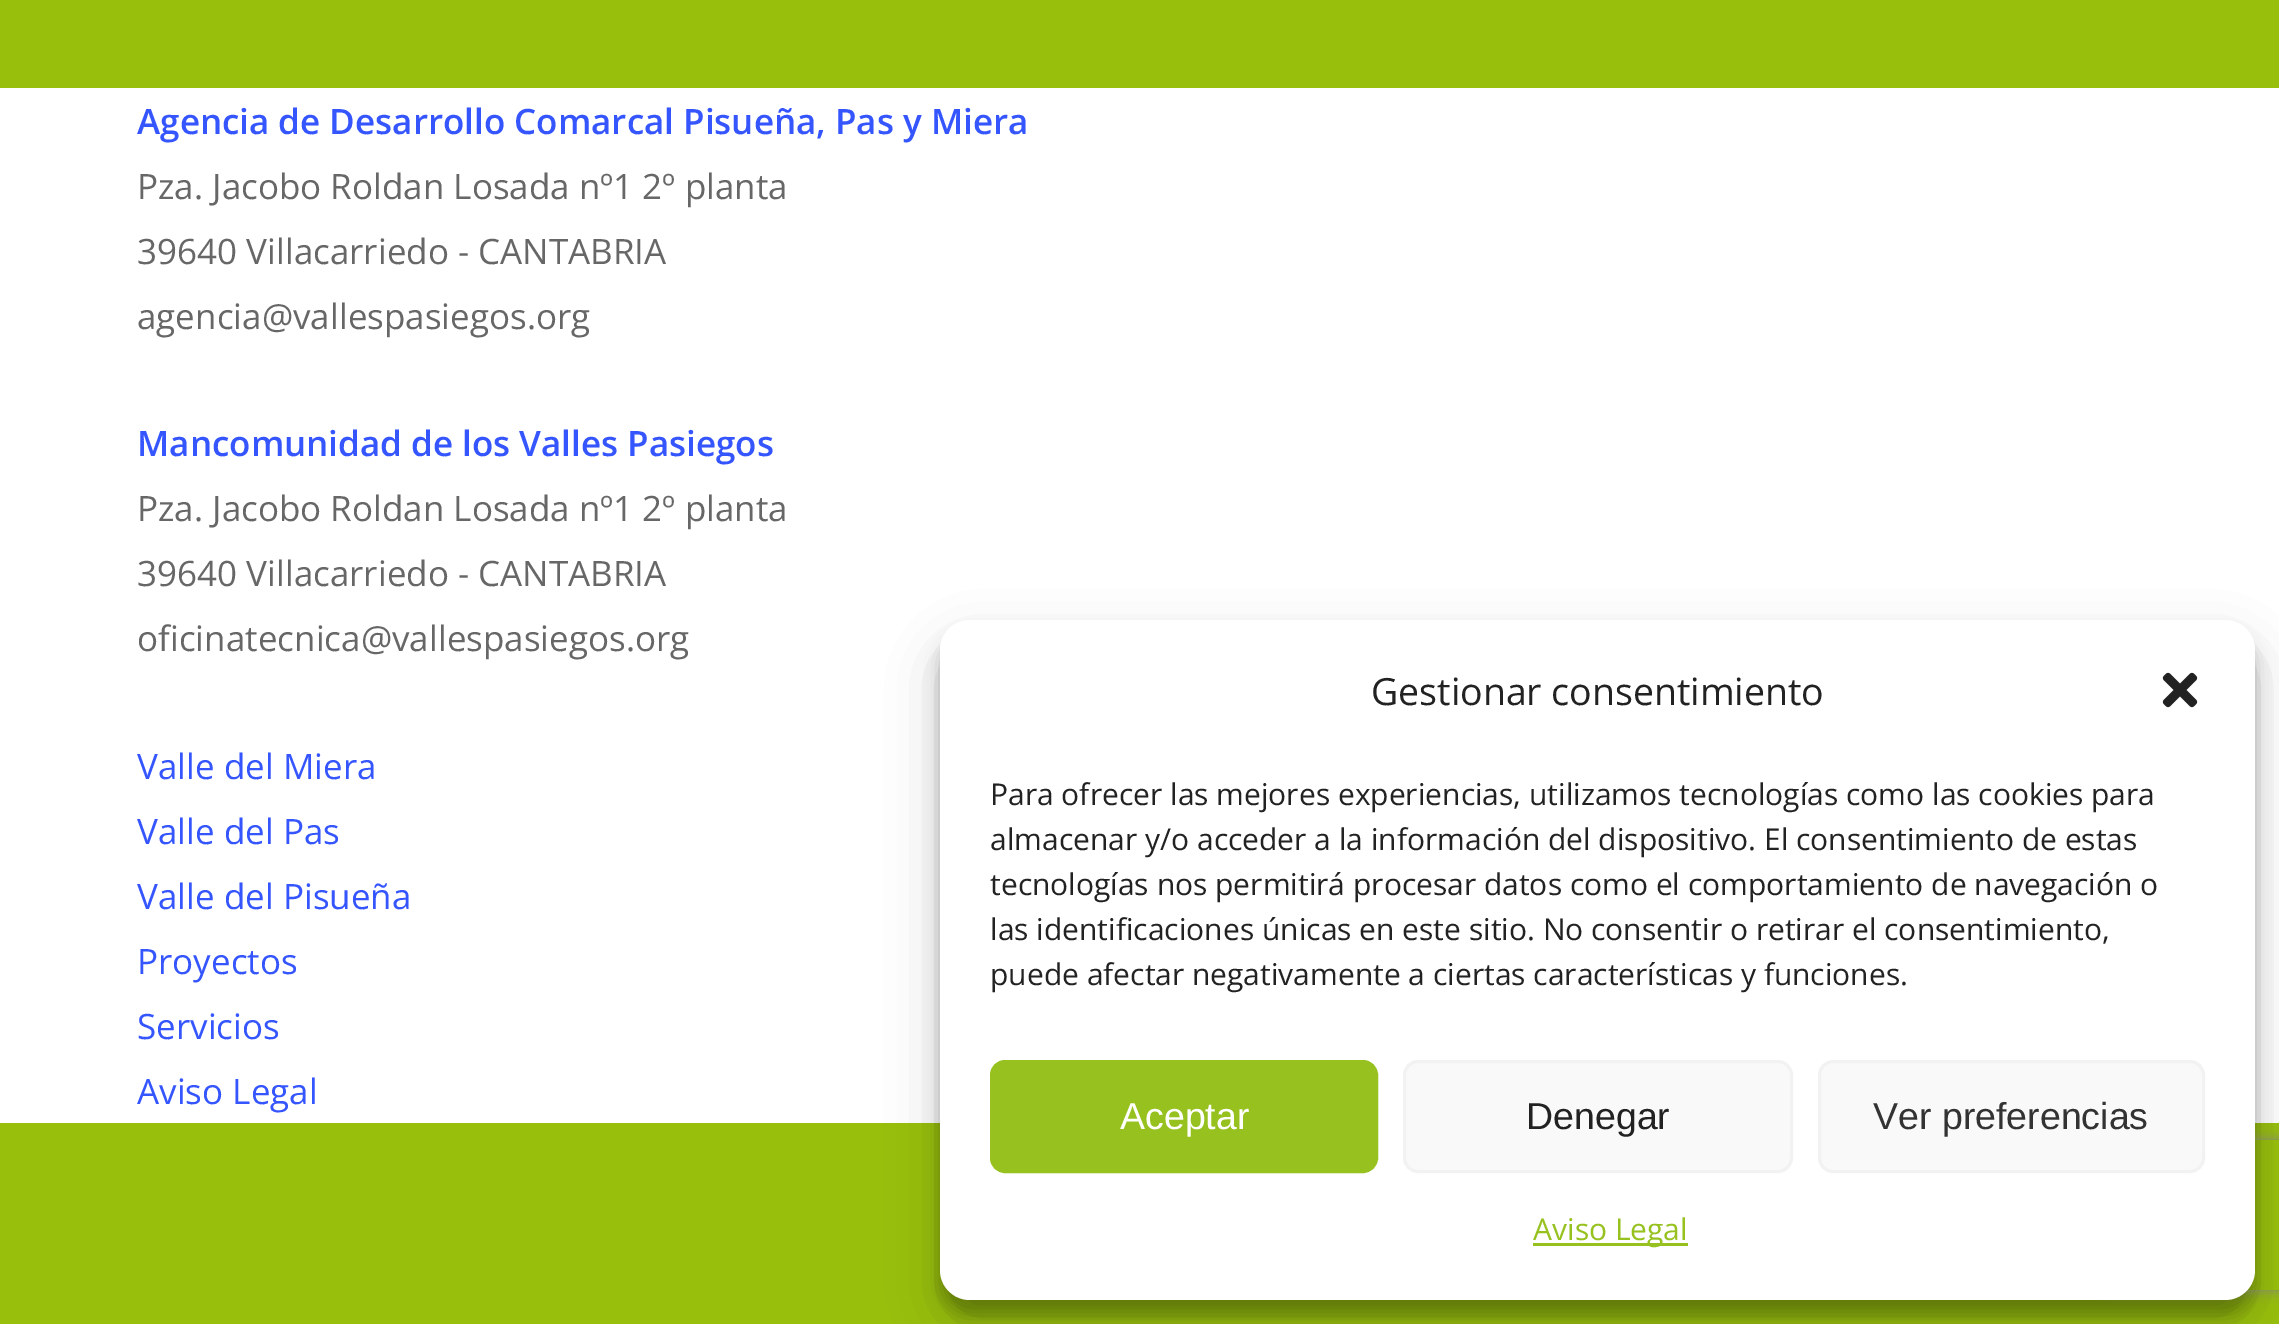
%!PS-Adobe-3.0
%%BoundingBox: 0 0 2279 1324
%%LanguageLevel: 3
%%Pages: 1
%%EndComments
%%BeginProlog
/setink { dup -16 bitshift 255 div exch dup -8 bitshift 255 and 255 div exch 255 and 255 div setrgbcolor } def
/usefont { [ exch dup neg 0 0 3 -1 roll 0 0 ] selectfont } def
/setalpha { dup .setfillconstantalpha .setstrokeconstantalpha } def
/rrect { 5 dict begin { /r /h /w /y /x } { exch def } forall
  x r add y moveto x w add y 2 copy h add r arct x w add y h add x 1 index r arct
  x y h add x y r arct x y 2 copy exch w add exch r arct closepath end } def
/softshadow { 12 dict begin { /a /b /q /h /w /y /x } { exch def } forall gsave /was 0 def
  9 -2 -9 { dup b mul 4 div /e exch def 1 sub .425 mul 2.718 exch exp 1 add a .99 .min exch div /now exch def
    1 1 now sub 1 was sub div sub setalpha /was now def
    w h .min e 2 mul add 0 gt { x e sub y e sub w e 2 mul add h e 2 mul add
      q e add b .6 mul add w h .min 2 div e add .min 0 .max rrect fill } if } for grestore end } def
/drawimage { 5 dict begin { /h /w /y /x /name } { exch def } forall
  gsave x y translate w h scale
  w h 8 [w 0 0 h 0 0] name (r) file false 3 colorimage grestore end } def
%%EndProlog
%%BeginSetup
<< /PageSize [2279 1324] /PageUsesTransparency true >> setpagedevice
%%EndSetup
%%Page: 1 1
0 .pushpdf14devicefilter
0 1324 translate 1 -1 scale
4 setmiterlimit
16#FFFFFF setink
0 0 2279 1324 rectfill
16#98BF0C setink
0 0 2279 88 rectfill
/OpenSans-SemiBold 35 usefont
16#3555FF setink
137 134 moveto (Agencia de Desarrollo Comarcal Pisueña, Pas y Miera) show
/OpenSans-Regular 35 usefont
16#676767 setink
[
    [(Pza. Jacobo Roldan Losada nº1 2º planta) 137 199]
    [(39640 Villacarriedo - CANTABRIA) 137 264]
    [(agencia@vallespasiegos.org) 137 329]
] { aload pop moveto show } forall
/OpenSans-SemiBold 35 usefont
16#3555FF setink
137 456 moveto (Mancomunidad de los Valles Pasiegos) show
/OpenSans-Regular 35 usefont
16#676767 setink
[
    [(Pza. Jacobo Roldan Losada nº1 2º planta) 137 521]
    [(39640 Villacarriedo - CANTABRIA) 137 586]
    [(oficinatecnica@vallespasiegos.org) 137 651]
] { aload pop moveto show } forall
16#3555FF setink
[
    [(Valle del Miera) 137 779]
    [(Valle del Pas) 137 844]
    [(Valle del Pisueña) 137 909]
    [(Proyectos) 137 974]
    [(Servicios) 137 1039]
    [(Aviso Legal) 137 1104]
] { aload pop moveto show } forall
16#98BF0C setink
0 1123 2279 201 rectfill
16#000000 setink
940 635 1315 680 30 7.5 0.23 softshadow
940 645 1315 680 30 25 0.19 softshadow
gsave
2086 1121 moveto 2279 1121 lineto 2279 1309 lineto 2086 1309 lineto closepath 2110 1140 moveto 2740 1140 lineto 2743 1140 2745 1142 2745 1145 curveto 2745 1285 lineto 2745 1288 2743 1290 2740 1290 curveto 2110 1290 lineto 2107 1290 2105 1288 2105 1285 curveto 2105 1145 lineto 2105 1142 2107 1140 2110 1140 curveto closepath eoclip newpath
16#808080 setink
2105 1140 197 150 5 6 1 softshadow
grestore
16#FFFFFF setink
940 620 1315 680 30 rrect fill
/OpenSans-Regular 37.5 usefont
16#222222 setink
1371 705 moveto (Gestionar consentimiento) show
(img1.raw) 2162 672 36 36 drawimage
/OpenSans-Regular 30 usefont
[
    [(Para ofrecer las mejores experiencias, utilizamos tecnologías como las cookies para) 990 805]
    [(almacenar y/o acceder a la información del dispositivo. El consentimiento de estas) 990 850]
    [(tecnologías nos permitirá procesar datos como el comportamiento de navegación o) 990 895]
    [(las identificaciones únicas en este sitio. No consentir o retirar el consentimiento,) 990 940]
    [(puede afectar negativamente a ciertas características y funciones.) 990 985]
] { aload pop moveto show } forall
16#96C11F setink
991.5 1061.5 385 110 13.5 rrect gsave fill grestore
3 setlinewidth
stroke
/LiberationSans-Regular 37.5 usefont
16#FFFFFF setink
1120 1129 moveto (Aceptar) show
16#F9F9F9 setink
1404.5 1061.5 387 110 13.5 rrect gsave fill grestore
16#F2F2F2 setink
stroke
16#222222 setink
1526 1129 moveto (Denegar) show
16#F9F9F9 setink
1819.5 1061.5 384 110 13.5 rrect gsave fill grestore
16#F2F2F2 setink
stroke
16#333333 setink
1873 1129 moveto (Ver preferencias) show
16#96C11F setink
1533 1243 155 3 rectfill
/OpenSans-Regular 30 usefont
1533 1240 moveto (Aviso Legal) show
.poppdf14devicefilter showpage
%%EOF
